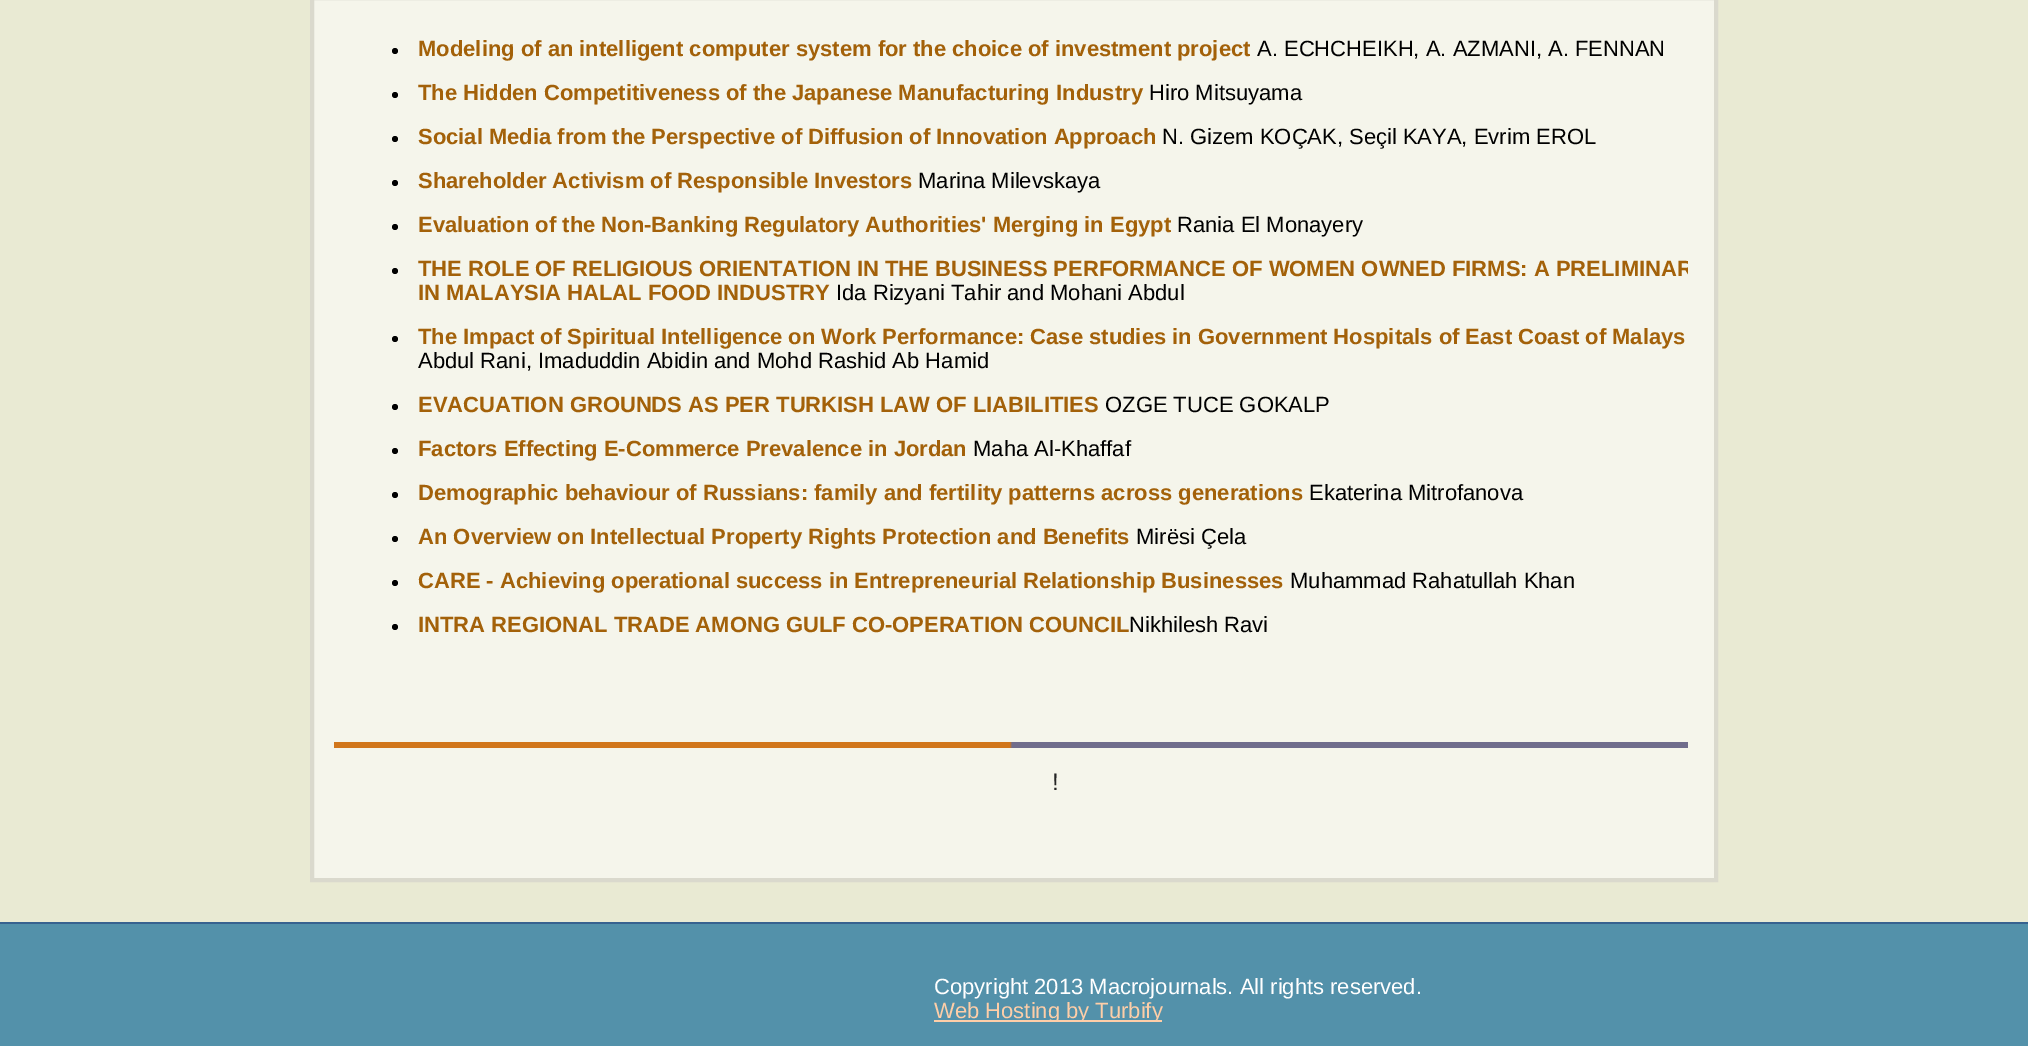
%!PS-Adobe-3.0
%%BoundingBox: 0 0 2028 1046
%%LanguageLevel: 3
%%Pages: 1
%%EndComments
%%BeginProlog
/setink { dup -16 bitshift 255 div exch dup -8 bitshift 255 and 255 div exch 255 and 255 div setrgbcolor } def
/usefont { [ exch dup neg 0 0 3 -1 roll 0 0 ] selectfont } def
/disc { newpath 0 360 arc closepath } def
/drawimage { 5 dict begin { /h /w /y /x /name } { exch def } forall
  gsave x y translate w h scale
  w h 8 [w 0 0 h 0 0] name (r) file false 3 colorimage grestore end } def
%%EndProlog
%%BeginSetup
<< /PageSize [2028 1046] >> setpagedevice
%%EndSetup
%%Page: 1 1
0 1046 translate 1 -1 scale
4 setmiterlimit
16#E9EAD3 setink
0 0 2028 1046 rectfill
16#F5F5EB setink
312 -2 moveto 1716 -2 lineto 1716 880 lineto 312 880 lineto closepath gsave fill grestore
16#DAD9CD setink
4 setlinewidth
stroke
(img1.raw) 334 742 1354 6 drawimage
16#000000 setink
395 51 3 disc fill
/LiberationSans-Bold 22 usefont
16#A36109 setink
418 56 moveto (Modeling of an intelligent computer system for the choice of investment project) show
/LiberationSans-Regular 22 usefont
16#000000 setink
1257 56 moveto (A. ECHCHEIKH, A. AZMANI, A. FENNAN) show
395 95 3 disc fill
/LiberationSans-Bold 22 usefont
16#A36109 setink
418 100 moveto (The Hidden Competitiveness of the Japanese Manufacturing Industry) show
/LiberationSans-Regular 22 usefont
16#000000 setink
1149 100 moveto (Hiro Mitsuyama) show
395 139 3 disc fill
/LiberationSans-Bold 22 usefont
16#A36109 setink
418 144 moveto (Social Media from the Perspective of Diffusion of Innovation Approach) show
/LiberationSans-Regular 22 usefont
16#000000 setink
1162 144 moveto (N. Gizem KOÇAK, Seçil KAYA, Evrim EROL) show
395 183 3 disc fill
/LiberationSans-Bold 22 usefont
16#A36109 setink
418 188 moveto (Shareholder Activism of Responsible Investors) show
/LiberationSans-Regular 22 usefont
16#000000 setink
918 188 moveto (Marina Milevskaya) show
395 227 3 disc fill
/LiberationSans-Bold 22 usefont
16#A36109 setink
418 232 moveto (Evaluation of the Non-Banking Regulatory Authorities' Merging in Egypt) show
/LiberationSans-Regular 22 usefont
16#000000 setink
1177 232 moveto (Rania El Monayery) show
395 271 3 disc fill
gsave
334 0 1354 708 rectclip
/LiberationSans-Bold 22 usefont
16#A36109 setink
418 276 moveto (THE ROLE OF RELIGIOUS ORIENTATION IN THE BUSINESS PERFORMANCE OF WOMEN OWNED FIRMS: A PRELIMINAR) show
grestore
/LiberationSans-Bold 22 usefont
16#A36109 setink
418 300 moveto (IN MALAYSIA HALAL FOOD INDUSTRY) show
/LiberationSans-Regular 22 usefont
16#000000 setink
836 300 moveto (Ida Rizyani Tahir and Mohani Abdul) show
395 339 3 disc fill
/LiberationSans-Bold 22 usefont
16#A36109 setink
418 344 moveto (The Impact of Spiritual Intelligence on Work Performance: Case studies in Government Hospitals of East Coast of Malays) show
/LiberationSans-Regular 22 usefont
16#000000 setink
418 368 moveto (Abdul Rani, Imaduddin Abidin and Mohd Rashid Ab Hamid) show
395 407 3 disc fill
/LiberationSans-Bold 22 usefont
16#A36109 setink
418 412 moveto (EVACUATION GROUNDS AS PER TURKISH LAW OF LIABILITIES) show
/LiberationSans-Regular 22 usefont
16#000000 setink
1105 412 moveto (OZGE TUCE GOKALP) show
395 451 3 disc fill
/LiberationSans-Bold 22 usefont
16#A36109 setink
418 456 moveto (Factors Effecting E-Commerce Prevalence in Jordan) show
/LiberationSans-Regular 22 usefont
16#000000 setink
973 456 moveto (Maha Al-Khaffaf) show
395 495 3 disc fill
/LiberationSans-Bold 22 usefont
16#A36109 setink
418 500 moveto (Demographic behaviour of Russians: family and fertility patterns across generations) show
/LiberationSans-Regular 22 usefont
16#000000 setink
1309 500 moveto (Ekaterina Mitrofanova) show
395 539 3 disc fill
/LiberationSans-Bold 22 usefont
16#A36109 setink
418 544 moveto (An Overview on Intellectual Property Rights Protection and Benefits) show
/LiberationSans-Regular 22 usefont
16#000000 setink
1136 544 moveto (Mirësi Çela) show
395 583 3 disc fill
/LiberationSans-Bold 22 usefont
16#A36109 setink
418 588 moveto (CARE - Achieving operational success in Entrepreneurial Relationship Businesses) show
/LiberationSans-Regular 22 usefont
16#000000 setink
1290 588 moveto (Muhammad Rahatullah Khan) show
395 627 3 disc fill
/LiberationSans-Bold 22 usefont
16#A36109 setink
418 632 moveto (INTRA REGIONAL TRADE AMONG GULF CO-OPERATION COUNCIL) show
/LiberationSans-Regular 22 usefont
16#000000 setink
1129 632 moveto (Nikhilesh Ravi) show
/LiberationSans-Regular 24 usefont
16#252525 setink
1052 790 moveto (!) show
16#5391AA setink
0 924 2028 122 rectfill
16#37628F setink
0 922 2028 2 rectfill
/LiberationSans-Regular 22 usefont
16#FFFFFF setink
934 994 moveto (Copyright 2013 Macrojournals. All rights reserved.) show
16#FECEA8 setink
934 1020 228 2 rectfill
gsave
934 974 760 48 rectclip
934 1018 moveto (Web Hosting by Turbify) show
grestore
showpage
%%EOF
